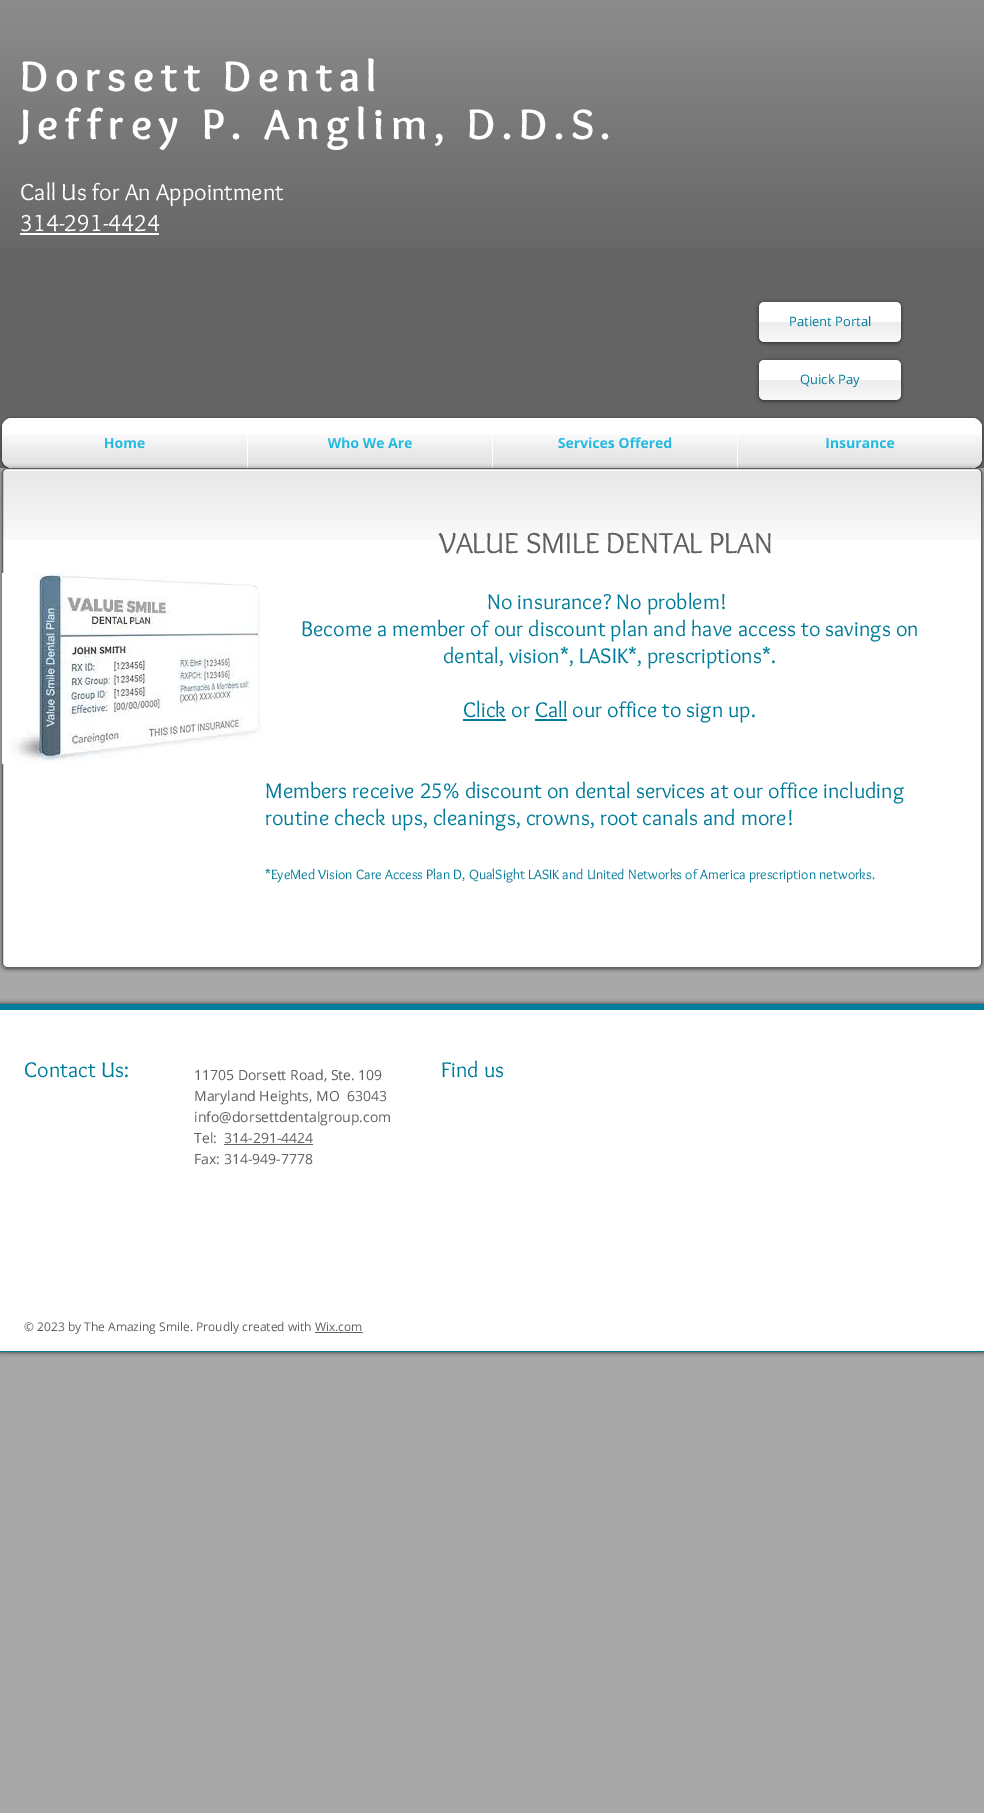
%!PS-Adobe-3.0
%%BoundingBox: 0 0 984 1813
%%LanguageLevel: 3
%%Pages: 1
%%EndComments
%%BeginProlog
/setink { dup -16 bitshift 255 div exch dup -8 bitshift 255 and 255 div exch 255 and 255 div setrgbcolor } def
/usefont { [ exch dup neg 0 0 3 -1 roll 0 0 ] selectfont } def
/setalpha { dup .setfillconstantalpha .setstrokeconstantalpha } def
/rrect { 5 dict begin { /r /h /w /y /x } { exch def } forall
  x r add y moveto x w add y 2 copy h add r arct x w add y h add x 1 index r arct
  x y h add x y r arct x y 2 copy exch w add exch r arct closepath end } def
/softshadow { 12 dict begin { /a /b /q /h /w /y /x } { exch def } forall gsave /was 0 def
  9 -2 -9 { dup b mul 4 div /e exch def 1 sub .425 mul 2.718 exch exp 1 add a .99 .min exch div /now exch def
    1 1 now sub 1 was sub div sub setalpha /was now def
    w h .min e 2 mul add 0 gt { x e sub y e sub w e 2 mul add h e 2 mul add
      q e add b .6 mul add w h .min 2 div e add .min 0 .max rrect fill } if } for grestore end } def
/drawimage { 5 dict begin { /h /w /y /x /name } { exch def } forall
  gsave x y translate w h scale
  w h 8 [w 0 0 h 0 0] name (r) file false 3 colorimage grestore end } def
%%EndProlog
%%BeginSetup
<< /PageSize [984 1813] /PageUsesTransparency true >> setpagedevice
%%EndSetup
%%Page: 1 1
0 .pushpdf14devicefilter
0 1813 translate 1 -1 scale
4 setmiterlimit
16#A8A8A8 setink
0 0 984 1813 rectfill
16#646464 setink
0 0 984 468 rectfill
(img1.raw) 0 0 984 248 drawimage
/Overlock-Bold 44 usefont
16#FFFFFF setink
20 91 moveto 6.6 0 (Dorsett Dental) ashow
20 139 moveto 6.6 0 (Jeffrey P. Anglim, D.D.S.) ashow
/Overlock-Regular 24 usefont
20 200 moveto (Call Us for An Appointment) show
20 231 moveto (314-291-4424) show
20 233 139 2 rectfill
16#000000 setink
759 303 142 40 5 2 0.6 softshadow
16#FFFFFF setink
759 302 142 40 5 rrect fill
(img2.raw) 759 302 142 40 drawimage
/OpenSans-Regular 13 usefont
16#007B9A setink
789 326 moveto (Patient Portal) show
16#000000 setink
759 361 142 40 5 2 0.6 softshadow
16#FFFFFF setink
759 360 142 40 5 rrect fill
(img2.raw) 759 360 142 40 drawimage
16#007B9A setink
800 384 moveto (Quick Pay) show
16#000000 setink
2 419 980 50 10 2 0.6 softshadow
(img3.raw) 2 418 980 9 drawimage
(img4.raw) 2 458 980 10 drawimage
16#FFFFFF setink
12 418 moveto 247 418 lineto 247 468 lineto 12 468 lineto 6.5 468 2 463.5 2 458 curveto 2 428 lineto 2 422.5 6.5 418 12 418 curveto closepath fill
/OpenSans-Bold 14 usefont
16#00B9E8 setink
104 448 moveto (Home) show
(img5.raw) 105 438 40 10 drawimage
(img6.raw) 2 434 245 34 drawimage
16#FFFFFF setink
247 418 490 50 rectfill
16#00B9E8 setink
328 448 moveto (Who We Are) show
(img7.raw) 327 437 85 11 drawimage
(img8.raw) 248 434 244 34 drawimage
558 448 moveto (Services Offered) show
(img9.raw) 558 437 114 11 drawimage
(img10.raw) 493 434 244 34 drawimage
16#FFFFFF setink
737 418 moveto 972 418 lineto 977.5 418 982 422.5 982 428 curveto 982 458 lineto 982 463.5 977.5 468 972 468 curveto 737 468 lineto closepath fill
16#00B9E8 setink
825 448 moveto (Insurance) show
(img11.raw) 826 438 68 10 drawimage
(img12.raw) 738 434 244 34 drawimage
16#000000 setink
2 469 980 500 5 2 0.6 softshadow
16#FFFFFF setink
2 468 980 500 5 rrect fill
(img13.raw) 2 471 980 69 drawimage
16#606060 setink
2.5 468.5 979 499 4.5 rrect stroke
(img14.raw) 2 573 260 191 drawimage
/Overlock-Regular 30 usefont
439 553 moveto (VALUE SMILE DENTAL PLAN) show
/Overlock-Regular 22 usefont
16#007B9A setink
[
    [(No insurance? No problem!) 487 609]
    [(Become a member of our discount plan and have access to savings on) 301 636]
    [(dental, vision*, LASIK*, prescriptions*.) 443 663]
] { aload pop moveto show } forall
463 719 43 2 rectfill
463 717 moveto (Click or Call our office to sign up.) show
535 719 32 2 rectfill
265 798 moveto (Members receive 25% discount on dental services at our office including) show
265 825 moveto (routine check ups, cleanings, crowns, root canals and more!) show
/Overlock-Regular 14 usefont
265 879 moveto (*EyeMed Vision Care Access Plan D, QualSight LASIK and United Networks of America prescription networks.) show
16#000000 setink
0 1004 984 348 0 2.5 0.7 softshadow
[
    [0 1010 984 341 16#FFFFFF]
    [0 1004 984 6 16#007B9A]
    [0 1351 984 1 16#007B9A]
] { aload pop setink rectfill } forall
/Overlock-Regular 22 usefont
24 1077 moveto (Contact Us:) show
/OpenSans-Regular 14 usefont
16#606060 setink
[
    [(11705 Dorsett Road, Ste. 109) 194 1080]
    [(Maryland Heights, MO  63043) 194 1101]
    [(info@dorsettdentalgroup.com) 194 1122]
    [(Tel:) 194 1143]
    [(314-291-4424) 224 1143]
] { aload pop moveto show } forall
224 1144 89 1 rectfill
194 1164 moveto (Fax: 314-949-7778) show
/Overlock-Regular 22 usefont
16#007B9A setink
441 1077 moveto (Find us) show
/OpenSans-Regular 12 usefont
16#606060 setink
24 1331 moveto (© 2023 by The Amazing Smile. Proudly created with Wix.com) show
315 1332 48 1 rectfill
.poppdf14devicefilter showpage
%%EOF
